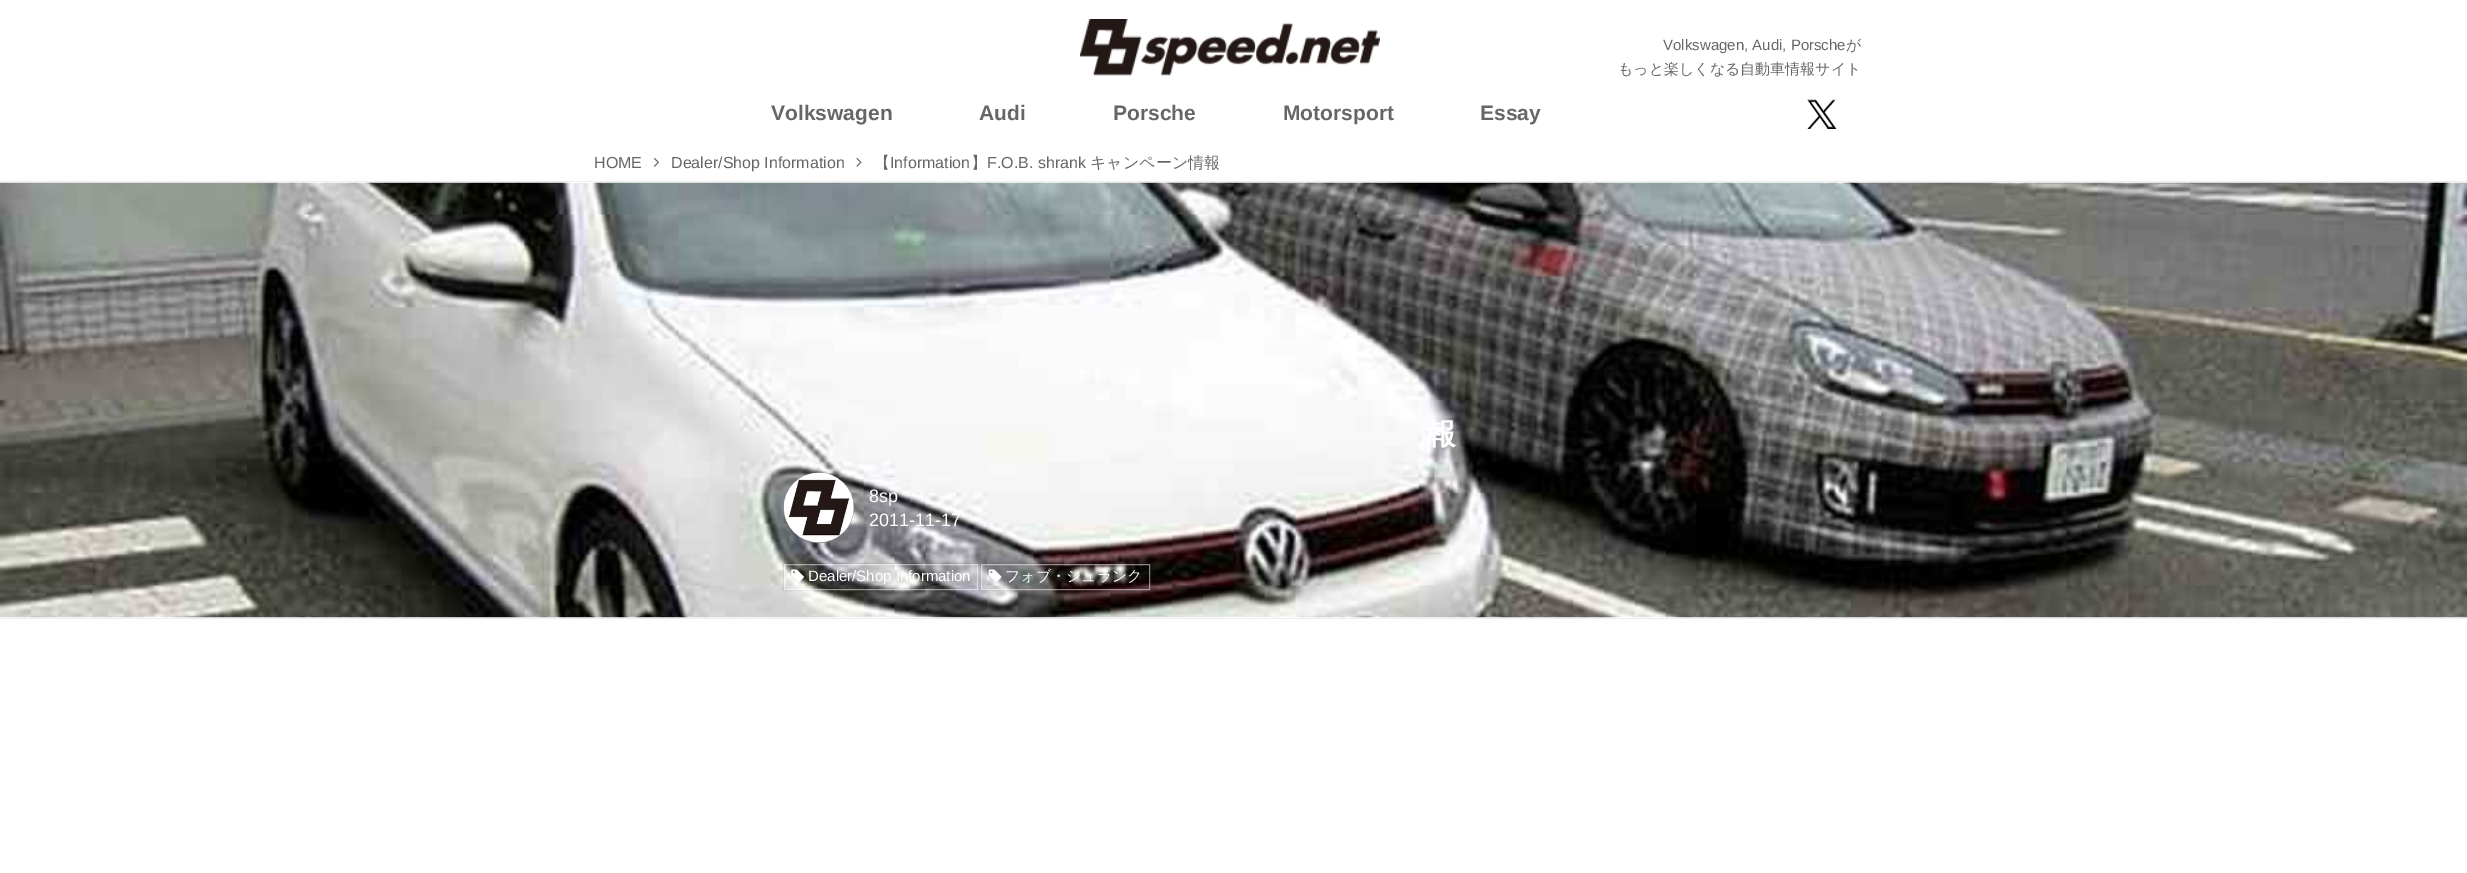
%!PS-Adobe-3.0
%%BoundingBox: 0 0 2467 873
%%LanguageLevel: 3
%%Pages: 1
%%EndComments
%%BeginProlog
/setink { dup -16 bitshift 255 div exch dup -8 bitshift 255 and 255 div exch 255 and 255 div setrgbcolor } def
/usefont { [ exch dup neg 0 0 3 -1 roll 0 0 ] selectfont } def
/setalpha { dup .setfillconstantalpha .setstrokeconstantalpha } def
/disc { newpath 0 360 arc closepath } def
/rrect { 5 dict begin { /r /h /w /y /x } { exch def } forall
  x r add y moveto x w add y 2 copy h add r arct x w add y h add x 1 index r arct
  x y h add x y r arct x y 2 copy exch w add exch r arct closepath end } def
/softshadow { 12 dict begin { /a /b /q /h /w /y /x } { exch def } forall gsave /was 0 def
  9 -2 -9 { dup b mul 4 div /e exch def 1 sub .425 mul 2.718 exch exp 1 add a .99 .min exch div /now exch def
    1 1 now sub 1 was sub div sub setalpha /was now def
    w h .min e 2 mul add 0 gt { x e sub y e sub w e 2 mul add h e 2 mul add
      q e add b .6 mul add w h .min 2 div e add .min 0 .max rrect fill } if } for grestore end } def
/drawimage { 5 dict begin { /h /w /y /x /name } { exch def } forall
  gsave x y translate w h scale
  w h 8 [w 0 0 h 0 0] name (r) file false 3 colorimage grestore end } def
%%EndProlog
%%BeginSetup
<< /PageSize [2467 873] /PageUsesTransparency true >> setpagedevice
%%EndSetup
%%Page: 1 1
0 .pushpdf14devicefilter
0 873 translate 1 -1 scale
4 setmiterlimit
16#FFFFFF setink
0 0 2467 873 rectfill
(img1.raw) 1080 19 300 57 drawimage
/LiberationSans-Regular 15 usefont
16#666666 setink
1663 50 moveto (Volkswagen, Audi, Porsche) show
/WenQuanYiZenHei-Medium 15 usefont
1846 50 moveto (が) show
1618 74 moveto (もっと楽しくなる自動車情報サイト) show
/LiberationSans-Bold 21 usefont
[
    [(Volkswagen) 771 120]
    [(Audi) 979 120]
    [(Porsche) 1113 120]
    [(Motorsport) 1283 120]
    [(Essay) 1480 120]
] { aload pop moveto show } forall
(img2.raw) 1807 99 30 30 drawimage
/LiberationSans-Regular 16 usefont
594 168 moveto (HOME) show
(img3.raw) 653 158 6 9 drawimage
671 168 moveto (Dealer/Shop Information) show
(img4.raw) 856 158 6 9 drawimage
/WenQuanYiZenHei-Medium 16 usefont
874 168 moveto (【) show
/LiberationSans-Regular 16 usefont
890 168 moveto (Information) show
/WenQuanYiZenHei-Medium 16 usefont
971 168 moveto (】) show
/LiberationSans-Regular 16 usefont
987 168 moveto (F.O.B. shrank) show
/WenQuanYiZenHei-Medium 16 usefont
1090 168 moveto (キャンペーン情報) show
16#EEEEEE setink
0 181 2467 1 rectfill
0 618 2467 1 rectfill
(img5.raw) 0 182 2467 436 drawimage
/WenQuanYiZenHei-Bold 30 usefont
16#FFFFFF setink
1426 444 moveto (報) show
16#888888 setink
819 508 35 disc fill
(img6.raw) 783 472 71 71 drawimage
/LiberationSans-Regular 18 usefont
16#FFFFFF setink
869 502 moveto (8sp) show
869 526 moveto (2011-11-17) show
gsave
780 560 moveto 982 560 lineto 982 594 lineto 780 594 lineto closepath 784 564 moveto 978 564 lineto 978 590 lineto 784 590 lineto closepath eoclip newpath
16#000000 setink
784 564 194 26 0 1 0.25 softshadow
grestore
0.5 setalpha
784.5 564.5 193 25 rectstroke
1 setalpha
(img7.raw) 791 569 13 13 drawimage
/LiberationSans-Regular 15 usefont
808 581 moveto (Dealer/Shop Information) show
gsave
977 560 moveto 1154 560 lineto 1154 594 lineto 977 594 lineto closepath 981 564 moveto 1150 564 lineto 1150 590 lineto 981 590 lineto closepath eoclip newpath
16#000000 setink
981 564 169 26 0 1 0.25 softshadow
grestore
0.5 setalpha
981.5 564.5 168 25 rectstroke
1 setalpha
(img8.raw) 988 569 14 13 drawimage
/WenQuanYiZenHei-Medium 15 usefont
1005 581 moveto (フォブ・シュランク) show
.poppdf14devicefilter showpage
%%EOF
